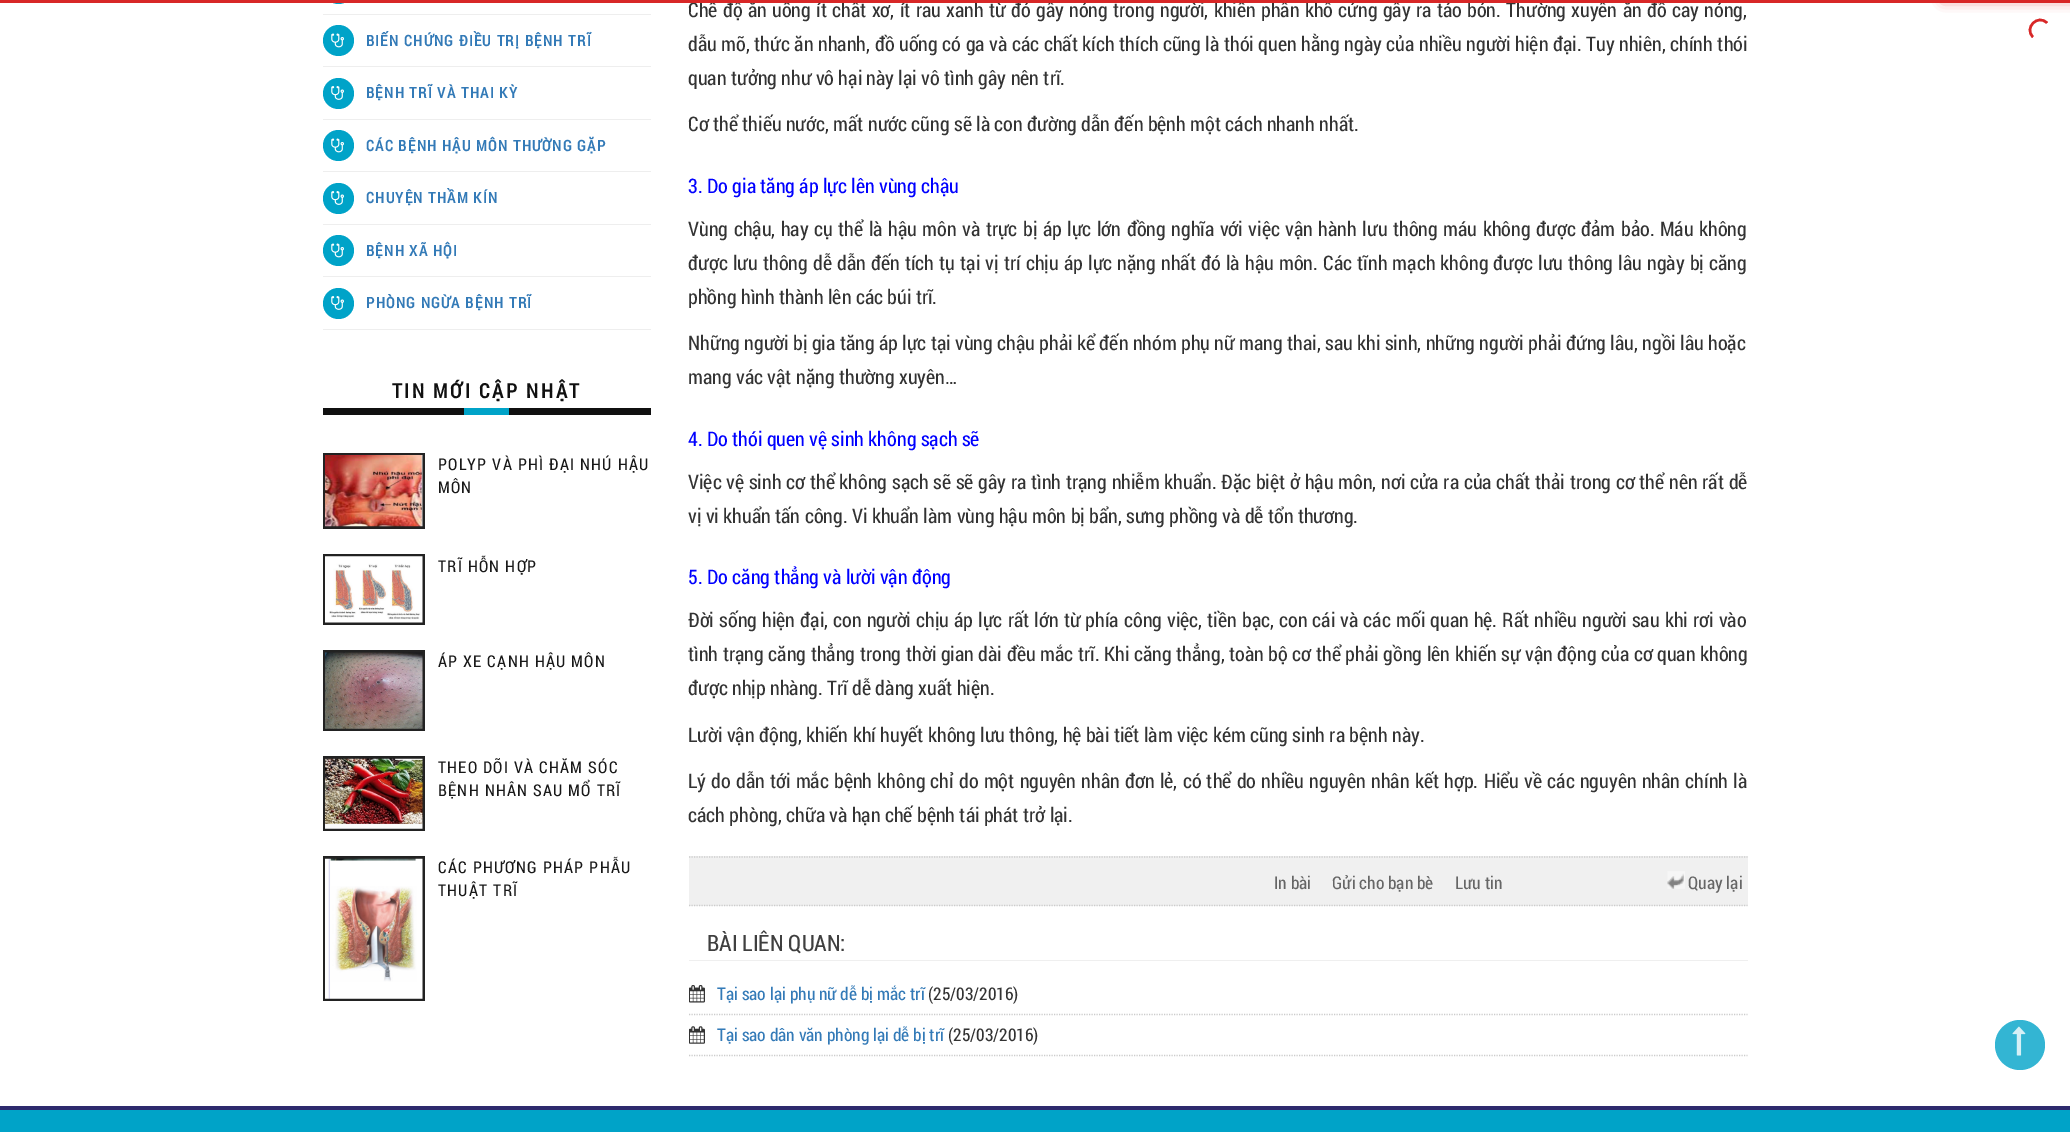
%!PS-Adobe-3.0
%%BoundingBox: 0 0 2070 1132
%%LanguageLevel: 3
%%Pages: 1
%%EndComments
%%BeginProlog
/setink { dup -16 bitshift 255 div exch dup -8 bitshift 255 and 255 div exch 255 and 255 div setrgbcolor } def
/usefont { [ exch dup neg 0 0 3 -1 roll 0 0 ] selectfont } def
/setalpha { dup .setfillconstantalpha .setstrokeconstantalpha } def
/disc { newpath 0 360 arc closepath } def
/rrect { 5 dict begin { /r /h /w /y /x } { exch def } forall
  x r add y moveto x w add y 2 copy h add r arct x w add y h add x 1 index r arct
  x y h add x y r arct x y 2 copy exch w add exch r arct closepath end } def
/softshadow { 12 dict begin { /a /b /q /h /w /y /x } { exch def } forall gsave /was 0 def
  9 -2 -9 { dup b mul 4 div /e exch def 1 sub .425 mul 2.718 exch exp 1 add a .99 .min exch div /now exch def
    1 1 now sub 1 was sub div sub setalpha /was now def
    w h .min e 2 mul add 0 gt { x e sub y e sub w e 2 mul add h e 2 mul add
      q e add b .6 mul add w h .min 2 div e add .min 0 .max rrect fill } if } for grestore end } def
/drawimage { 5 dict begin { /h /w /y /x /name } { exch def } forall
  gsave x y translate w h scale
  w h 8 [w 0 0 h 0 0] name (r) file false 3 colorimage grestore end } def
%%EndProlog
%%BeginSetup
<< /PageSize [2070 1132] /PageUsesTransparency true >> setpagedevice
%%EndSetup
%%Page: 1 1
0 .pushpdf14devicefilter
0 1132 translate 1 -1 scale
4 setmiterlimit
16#FFFFFF setink
0 0 2070 1132 rectfill
16#00A3C8 setink
323 -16 31 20 15.5 rrect fill
/RobotoCondensed-Regular 20 usefont
16#333333 setink
688 17 moveto 0.95 0 32 (Chế độ ăn uống ít chất xơ, ít rau xanh từ đó gây nóng trong người, khiến phân khô cứng gây ra táo bón. Thường xuyên ăn đồ cay nóng,) widthshow
16#D82727 setink
0 0 2070 3 rectfill
1945 -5 125 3 0 6.5 1 softshadow
2.5 setlinewidth
2033 37 moveto 2023.5 28 2038 13.5 2047 23 curveto stroke
16#EEEEEE setink
323 14 328 1 rectfill
323 66 328 1 rectfill
16#00A3C8 setink
338.5 40.5 15.5 disc fill
(img1.raw) 331 33 13 15 drawimage
/RobotoCondensed-Bold 15 usefont
16#337AB7 setink
366 46 moveto 1.25 0 (BIẾN CHỨNG ĐIỀU TRỊ BỆNH TRĨ) ashow
16#EEEEEE setink
323 119 328 1 rectfill
16#00A3C8 setink
338.5 93.5 15.5 disc fill
(img2.raw) 331 86 13 14 drawimage
16#337AB7 setink
366 98 moveto 1.25 0 (BỆNH TRĨ VÀ THAI KỲ) ashow
16#EEEEEE setink
323 171 328 1 rectfill
16#00A3C8 setink
338.5 145.5 15.5 disc fill
(img1.raw) 331 138 13 15 drawimage
16#337AB7 setink
366 151 moveto 1.25 0 (CÁC BỆNH HẬU MÔN THƯỜNG GẶP) ashow
16#EEEEEE setink
323 224 328 1 rectfill
16#00A3C8 setink
338.5 198.5 15.5 disc fill
(img2.raw) 331 191 13 14 drawimage
16#337AB7 setink
366 203 moveto 1.25 0 (CHUYỆN THẦM KÍN) ashow
16#EEEEEE setink
323 276 328 1 rectfill
16#00A3C8 setink
338.5 250.5 15.5 disc fill
(img1.raw) 331 243 13 15 drawimage
16#337AB7 setink
366 256 moveto 1.25 0 (BỆNH XÃ HỘI) ashow
16#EEEEEE setink
323 329 328 1 rectfill
16#00A3C8 setink
338.5 303.5 15.5 disc fill
(img2.raw) 331 296 13 14 drawimage
16#337AB7 setink
366 308 moveto 1.25 0 (PHÒNG NGỪA BỆNH TRĨ) ashow
16#101010 setink
323 408 328 7 rectfill
/RobotoCondensed-Bold 20 usefont
392 398 moveto 2.5 0 (TIN MỚI CẬP NHẬT) ashow
16#00A3C8 setink
464 408 45 7 rectfill
16#222222 setink
323 453 102 76 rectfill
(img3.raw) 325 455 98 72 drawimage
/RobotoCondensed-Regular 16.25 usefont
16#181818 setink
438 470 moveto 1.25 0 (POLYP VÀ PHÌ ĐẠI NHÚ HẬU) ashow
438 493 moveto 1.25 0 (MÔN) ashow
16#222222 setink
323 554 102 71 rectfill
(img4.raw) 325 556 98 67 drawimage
16#181818 setink
438 572 moveto 1.25 0 (TRĨ HỖN HỢP) ashow
16#222222 setink
323 650 102 81 rectfill
(img5.raw) 325 652 98 77 drawimage
16#181818 setink
438 667 moveto 1.25 0 (ÁP XE CẠNH HẬU MÔN) ashow
16#222222 setink
323 756 102 75 rectfill
(img6.raw) 325 758 98 71 drawimage
16#181818 setink
438 773 moveto 1.25 0 (THEO DÕI VÀ CHĂM SÓC) ashow
438 796 moveto 1.25 0 (BỆNH NHÂN SAU MỔ TRĨ) ashow
16#222222 setink
323 856 102 145 rectfill
(img7.raw) 325 858 98 141 drawimage
16#181818 setink
438 873 moveto 1.25 0 (CÁC PHƯƠNG PHÁP PHẪU) ashow
438 896 moveto 1.25 0 (THUẬT TRĨ) ashow
/RobotoCondensed-Regular 20 usefont
16#333333 setink
688 51 moveto 0.2 0 32 (dẫu mỡ, thức ăn nhanh, đồ uống có ga và các chất kích thích cũng là thói quen hằng ngày của nhiều người hiện đại. Tuy nhiên, chính thói) widthshow
688 85 moveto (quan tưởng như vô hại này lại vô tình gây nên trĩ.) show
688 131 moveto (Cơ thể thiếu nước, mất nước cũng sẽ là con đường dẫn đến bệnh một cách nhanh nhất.) show
16#0000FF setink
688 193 moveto (3. Do gia tăng áp lực lên vùng chậu) show
16#333333 setink
688 236 moveto 1.15 0 32 (Vùng chậu, hay cụ thể là hậu môn và trực bị áp lực lớn đồng nghĩa với việc vận hành lưu thông máu không được đảm bảo. Máu không) widthshow
688 270 moveto 0.8 0 32 (được lưu thông dễ dẫn đến tích tụ tại vị trí chịu áp lực nặng nhất đó là hậu môn. Các tĩnh mạch không được lưu thông lâu ngày bị căng) widthshow
[
    [(phồng hình thành lên các búi trĩ.) 688 304]
    [(Những người bị gia tăng áp lực tại vùng chậu phải kể đến nhóm phụ nữ mang thai, sau khi sinh, những người phải đứng lâu, ngồi lâu hoặc) 688 350]
    [(mang vác vật nặng thường xuyên…) 688 384]
] { aload pop moveto show } forall
16#0000FF setink
688 446 moveto (4. Do thói quen vệ sinh không sạch sẽ) show
16#333333 setink
688 489 moveto 0.35 0 32 (Việc vệ sinh cơ thể không sạch sẽ sẽ gây ra tình trạng nhiễm khuẩn. Đặc biệt ở hậu môn, nơi cửa ra của chất thải trong cơ thể nên rất dễ) widthshow
688 523 moveto (vị vi khuẩn tấn công. Vi khuẩn làm vùng hậu môn bị bẩn, sưng phồng và dễ tổn thương.) show
16#0000FF setink
688 584 moveto (5. Do căng thẳng và lười vận động) show
16#333333 setink
688 627 moveto 0.75 0 32 (Đời sống hiện đại, con người chịu áp lực rất lớn từ phía công việc, tiền bạc, con cái và các mối quan hệ. Rất nhiều người sau khi rơi vào) widthshow
688 661 moveto 0.2 0 32 (tình trạng căng thẳng trong thời gian dài đều mắc trĩ. Khi căng thẳng, toàn bộ cơ thể phải gồng lên khiến sự vận động của cơ quan không) widthshow
688 695 moveto (được nhịp nhàng. Trĩ dễ dàng xuất hiện.) show
688 742 moveto (Lười vận động, khiến khí huyết không lưu thông, hệ bài tiết làm việc kém cũng sinh ra bệnh này.) show
688 788 moveto 0.85 0 32 (Lý do dẫn tới mắc bệnh không chỉ do một nguyên nhân đơn lẻ, có thể do nhiều nguyên nhân kết hợp. Hiểu về các nguyên nhân chính là) widthshow
688 822 moveto (cách phòng, chữa và hạn chế bệnh tái phát trở lại.) show
16#F0F0F0 setink
689 856 1059 50 rectfill
16#CCCCCC setink
1.2 setlinewidth
[1.25 1.25] 0 setdash
689 857 moveto 1747.5 857 lineto stroke
689 905.5 moveto 1747.5 905.5 lineto stroke
/RobotoCondensed-Regular 17.5 usefont
16#666666 setink
[
    [(In bài) 1274 889]
    [(Gửi cho bạn bè) 1332 889]
    [(Lưu tin) 1455 889]
] { aload pop moveto show } forall
(img8.raw) 1667 871 18 18 drawimage
1688 889 moveto (Quay lại) show
16#EFEFEF setink
689 960 1059 1 rectfill
/RobotoCondensed-Regular 22.5 usefont
16#3F3F3F setink
707 951 moveto (BÀI LIÊN QUAN:) show
16#CCCCCC setink
689 1014.5 moveto 1747.5 1014.5 lineto stroke
(img9.raw) 689 985 16 18 drawimage
/RobotoCondensed-Regular 17.5 usefont
16#337AB7 setink
717 1000 moveto (Tại sao lại phụ nữ dễ bị mắc trĩ) show
16#333333 setink
928 1000 moveto (\(25/03/2016\)) show
16#CCCCCC setink
689 1055.5 moveto 1747.5 1055.5 lineto stroke
(img10.raw) 689 1026 16 18 drawimage
16#337AB7 setink
717 1041 moveto (Tại sao dân văn phòng lại dễ bị trĩ) show
16#333333 setink
948 1041 moveto (\(25/03/2016\)) show
16#00A3C8 setink
0 1110 2070 22 rectfill
16#2D2A6D setink
0 1106 2070 4 rectfill
16#33B5D3 setink
2020 1045 25 disc fill
(img11.raw) 2012 1026 14 30 drawimage
.poppdf14devicefilter showpage
%%EOF
